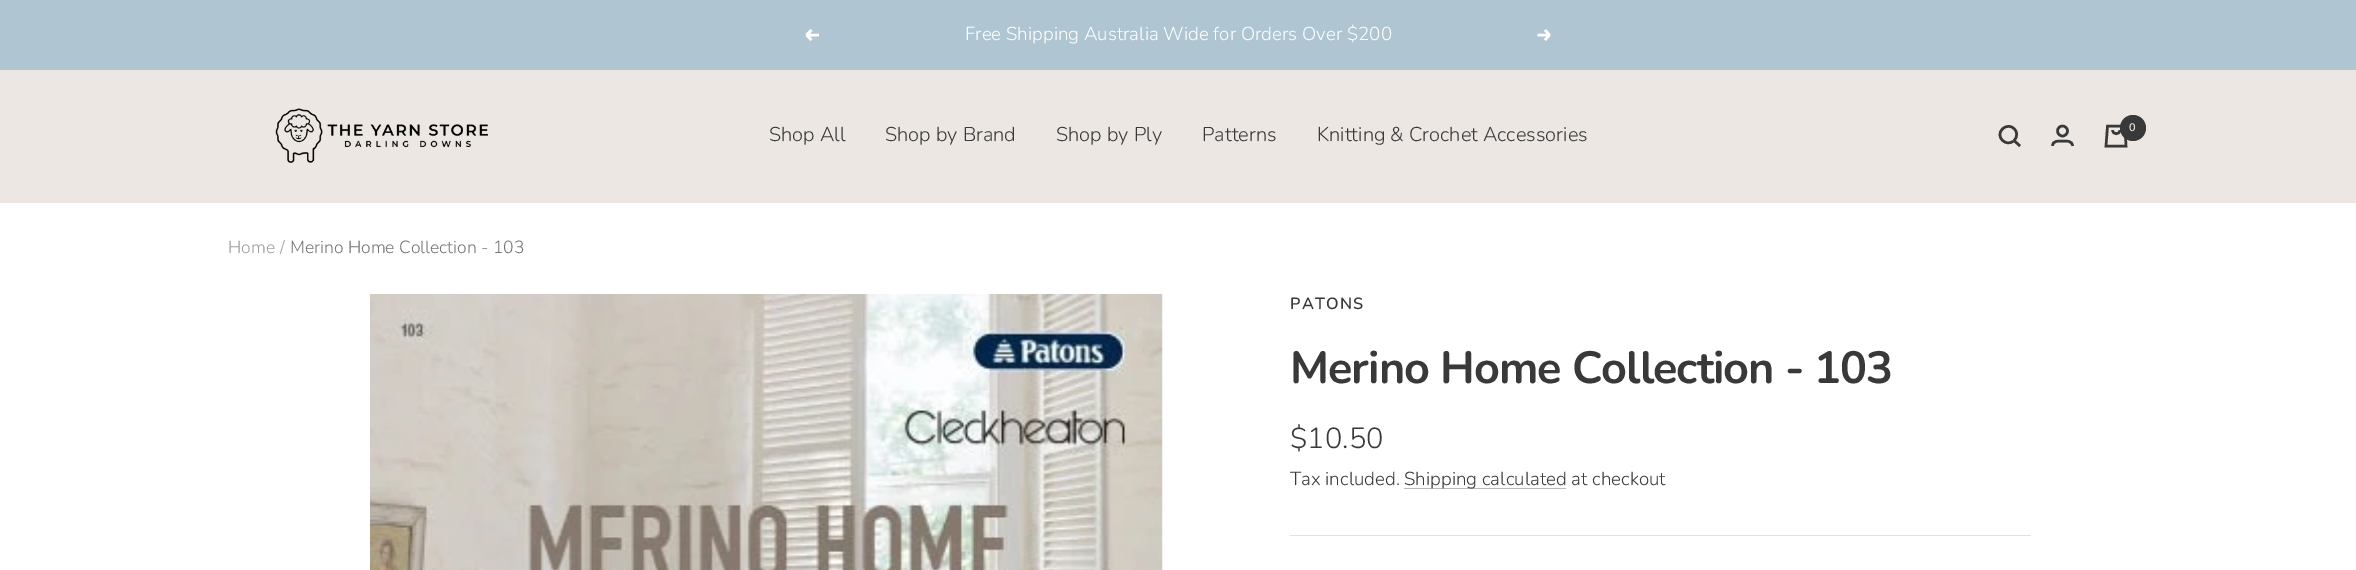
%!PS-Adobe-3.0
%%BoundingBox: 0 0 2356 570
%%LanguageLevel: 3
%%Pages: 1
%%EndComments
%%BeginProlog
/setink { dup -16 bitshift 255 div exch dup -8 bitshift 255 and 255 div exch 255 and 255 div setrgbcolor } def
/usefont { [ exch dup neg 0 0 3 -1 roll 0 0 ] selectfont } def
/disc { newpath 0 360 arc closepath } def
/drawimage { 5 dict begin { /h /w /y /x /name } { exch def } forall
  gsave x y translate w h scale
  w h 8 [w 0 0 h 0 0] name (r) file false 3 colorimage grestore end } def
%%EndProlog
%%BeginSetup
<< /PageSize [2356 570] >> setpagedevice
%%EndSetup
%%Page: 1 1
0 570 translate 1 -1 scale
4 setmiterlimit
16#FFFFFF setink
0 0 2356 570 rectfill
16#AFC6D2 setink
0 0 2356 70 rectfill
16#FFFFFF setink
2.5 setlinewidth
819 35 moveto 806.5 35 lineto 806.5 35 moveto 811.5 40 lineto 806.5 35 moveto 811.5 30 lineto stroke
/Nunito-Light 18.75 usefont
965 40 moveto (Free Shipping Australia Wide for Orders Over $200) show
1537.5 35 moveto 1549.5 35 lineto 1549.5 35 moveto 1545 40 lineto 1549.5 35 moveto 1545 30 lineto stroke
16#ECE7E2 setink
0 70 2356 133 rectfill
(img1.raw) 275 108 213 55 drawimage
/Nunito-Light 20 usefont
16#393939 setink
[
    [(Shop All) 769 141]
    [(Shop by Brand) 885 141]
    [(Shop by Ply) 1056 141]
    [(Patterns) 1202 141]
    [(Knitting & Crochet Accessories) 1317 141]
] { aload pop moveto show } forall
2014 140.5 moveto 2022 132.5 2010.5 121 2002.5 129 curveto 1994.5 136.5 2006.5 148 2014 140.5 curveto closepath 2014 140.5 moveto 2020 146 lineto stroke
2062.5 131 5 disc stroke
2052.5 146 moveto 2052.5 140.5 2058.5 141 2062.5 141 curveto 2066.5 141 2072.5 140.5 2072.5 146 curveto stroke
2107.5 126 moveto 2125 126 lineto 2126 146 lineto 2106 146 lineto closepath 2112.5 130 moveto 2112.5 135 2120 135 2120 130 curveto stroke
2133 128 13 disc fill
/Nunito-SemiBold 11 usefont
16#ECE7E2 setink
2129 131 moveto (0) show
/Nunito-Light 17.5 usefont
16#9E9E9E setink
228 253 moveto (Home) show
280 253 moveto (/) show
16#747474 setink
290 253 moveto (Merino Home Collection - 103) show
16#F4F6F8 setink
1162 294 1 276 rectfill
(img2.raw) 370 294 793 276 drawimage
16#E1E1E1 setink
1290 535 741 1 rectfill
/Nunito-SemiBold 16.25 usefont
16#393939 setink
1290 309 moveto 1.25 0 (PATONS) ashow
/Nunito-Bold 45 usefont
1290 383 moveto -1 0 (Merino Home Collection - 103) ashow
/Nunito-Light 29 usefont
1290 448 moveto ($10.50) show
/Nunito-Light 18.75 usefont
1290 485 moveto (Tax included.) show
16#BABABA setink
1404 488 162 1 rectfill
16#393939 setink
1404 485 moveto (Shipping calculated at checkout) show
showpage
%%EOF
